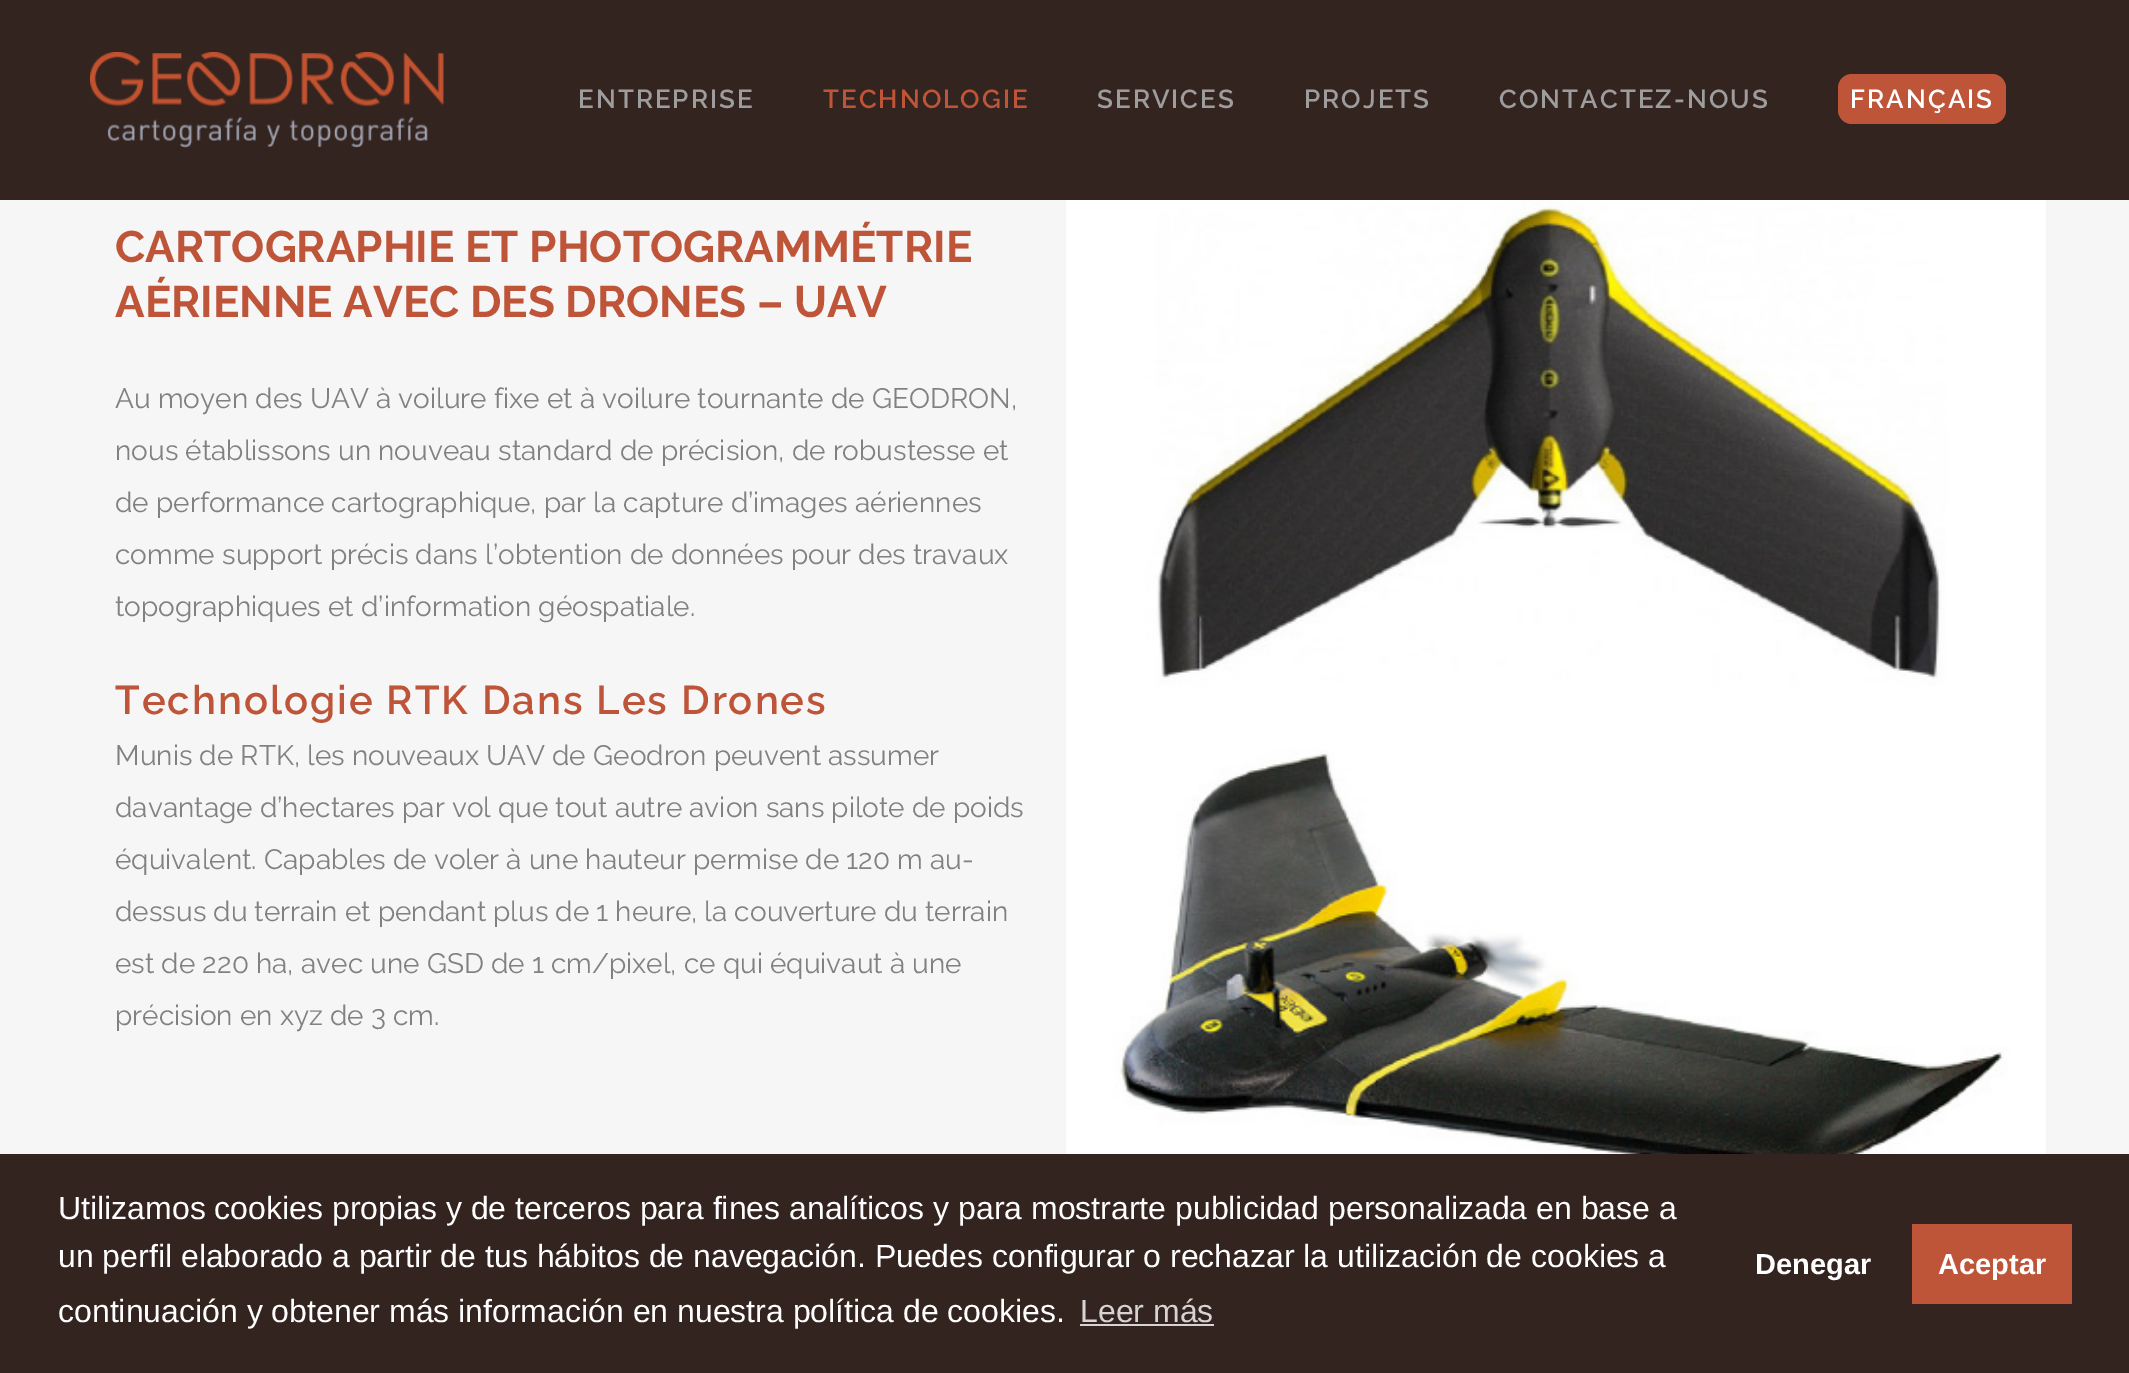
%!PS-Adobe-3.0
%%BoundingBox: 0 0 2129 1373
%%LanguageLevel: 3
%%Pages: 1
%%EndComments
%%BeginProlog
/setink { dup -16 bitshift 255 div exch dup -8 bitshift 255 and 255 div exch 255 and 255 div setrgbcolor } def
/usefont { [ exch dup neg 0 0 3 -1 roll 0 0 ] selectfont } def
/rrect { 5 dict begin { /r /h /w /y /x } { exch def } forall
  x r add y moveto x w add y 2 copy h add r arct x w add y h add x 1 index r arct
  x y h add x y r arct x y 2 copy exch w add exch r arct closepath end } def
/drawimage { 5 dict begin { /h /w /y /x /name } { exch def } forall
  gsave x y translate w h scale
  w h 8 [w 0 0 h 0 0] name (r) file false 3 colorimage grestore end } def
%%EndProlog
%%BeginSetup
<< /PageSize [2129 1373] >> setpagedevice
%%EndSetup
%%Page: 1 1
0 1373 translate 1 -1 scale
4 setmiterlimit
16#F6F6F6 setink
0 0 2129 1373 rectfill
16#342420 setink
0 0 2129 200 rectfill
(img1.raw) 90 52 354 96 drawimage
/Raleway-SemiBold 26 usefont
16#9D9D9D setink
578 108 moveto 2 0 (ENTREPRISE) ashow
16#BE5438 setink
823 108 moveto 2 0 (TECHNOLOGIE) ashow
16#9D9D9D setink
1097 108 moveto 2 0 (SERVICES) ashow
1304 108 moveto 2 0 (PROJETS) ashow
1499 108 moveto 2 0 (CONTACTEZ-NOUS) ashow
16#BE5438 setink
1838 74 168 50 14 rrect fill
16#FFFFFF setink
1850 108 moveto 2 0 (FRANÇAIS) ashow
/Raleway-Bold 44 usefont
16#BE5438 setink
115 262 moveto (CARTOGRAPHIE ET PHOTOGRAMMÉTRIE) show
115 317 moveto (AÉRIENNE AVEC DES DRONES – UAV) show
/Raleway-Regular 28 usefont
16#818181 setink
[
    [(Au moyen des UAV à voilure fixe et à voilure tournante de GEODRON,) 115 408]
    [(nous établissons un nouveau standard de précision, de robustesse et) 115 460]
    [(de performance cartographique, par la capture d’images aériennes) 115 512]
    [(comme support précis dans l’obtention de données pour des travaux) 115 564]
    [(topographiques et d’information géospatiale.) 115 616]
] { aload pop moveto show } forall
/Raleway-SemiBold 40 usefont
16#BE5438 setink
115 714 moveto 2 0 (Technologie RTK Dans Les Drones) ashow
/Raleway-Regular 28 usefont
16#818181 setink
[
    [(Munis de RTK, les nouveaux UAV de Geodron peuvent assumer) 115 765]
    [(davantage d’hectares par vol que tout autre avion sans pilote de poids) 115 817]
    [(équivalent. Capables de voler à une hauteur permise de 120 m au-) 115 869]
    [(dessus du terrain et pendant plus de 1 heure, la couverture du terrain) 115 921]
    [(est de 220 ha, avec une GSD de 1 cm/pixel, ce qui équivaut à une) 115 973]
    [(précision en xyz de 3 cm.) 115 1025]
] { aload pop moveto show } forall
(img2.raw) 1066 200 980 954 drawimage
16#342420 setink
0 1154 2129 219 rectfill
/LiberationSans-Regular 32 usefont
16#FFFFFF setink
[
    [(Utilizamos cookies propias y de terceros para fines analíticos y para mostrarte publicidad personalizada en base a) 58 1219]
    [(un perfil elaborado a partir de tus hábitos de navegación. Puedes configurar o rechazar la utilización de cookies a) 58 1267]
    [(continuación y obtener más información en nuestra política de cookies.) 58 1322]
] { aload pop moveto show } forall
16#D6D3D2 setink
1080 1322 moveto (Leer más) show
1080 1324 134 2 rectfill
/LiberationSans-Bold 29 usefont
16#FFFFFF setink
1755 1274 moveto (Denegar) show
16#BE5438 setink
1912 1224 160 80 rectfill
16#FFFFFF setink
1938 1274 moveto (Aceptar) show
showpage
%%EOF
